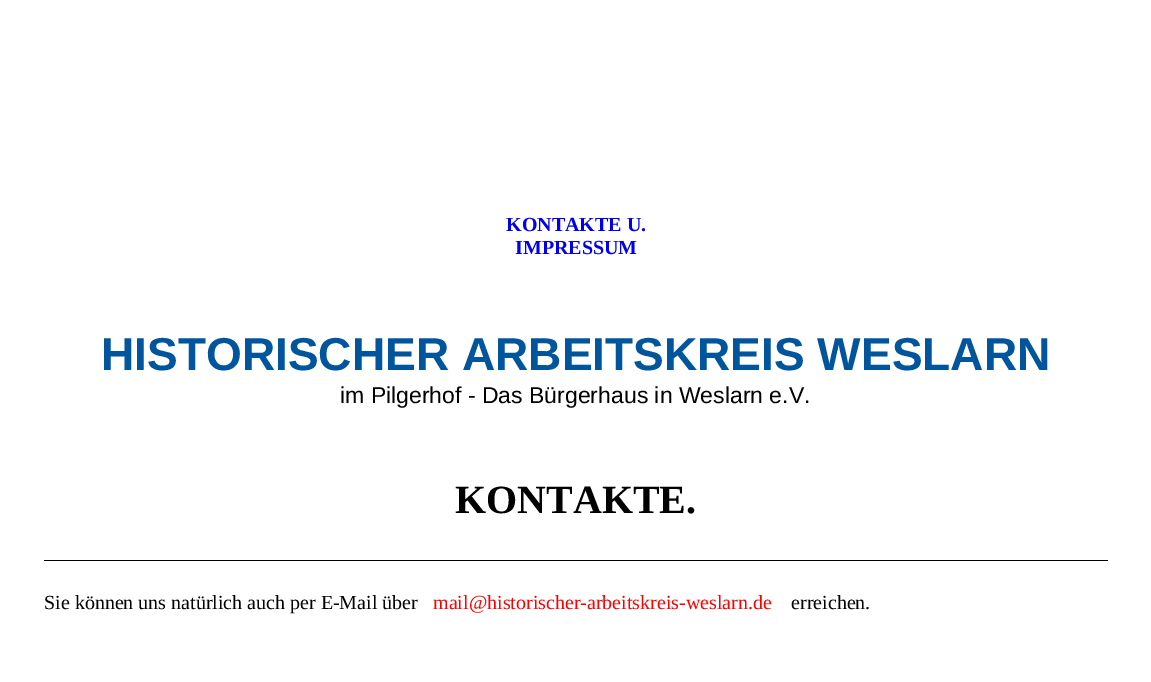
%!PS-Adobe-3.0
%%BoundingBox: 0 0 1151 682
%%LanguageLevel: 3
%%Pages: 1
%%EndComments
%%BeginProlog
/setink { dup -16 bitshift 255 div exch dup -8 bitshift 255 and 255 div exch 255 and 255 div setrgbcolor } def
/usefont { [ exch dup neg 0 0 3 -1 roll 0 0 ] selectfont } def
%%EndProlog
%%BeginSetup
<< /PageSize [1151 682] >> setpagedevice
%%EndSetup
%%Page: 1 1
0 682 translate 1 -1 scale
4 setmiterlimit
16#FFFFFF setink
0 0 1151 682 rectfill
/LiberationSerif-Bold 20 usefont
16#0000EE setink
506 231 moveto (KONTAKTE U.) show
515 254 moveto (IMPRESSUM) show
/LiberationSans-Bold 46.05 usefont
16#00559D setink
101 370 moveto (HISTORISCHER ARBEITSKREIS WESLARN) show
/LiberationSans-Regular 23 usefont
16#000000 setink
340 403 moveto (im Pilgerhof - Das Bürgerhaus in Weslarn e.V.) show
/LiberationSerif-Bold 40 usefont
455 513 moveto (KONTAKTE.) show
44 560 1064 1 rectfill
/LiberationSerif-Regular 20 usefont
44 609 moveto (Sie können uns natürlich auch per E-Mail über) show
16#FF0000 setink
433 609 moveto (mail@historischer-arbeitskreis-weslarn.de) show
16#000000 setink
791 609 moveto (erreichen.) show
showpage
%%EOF
